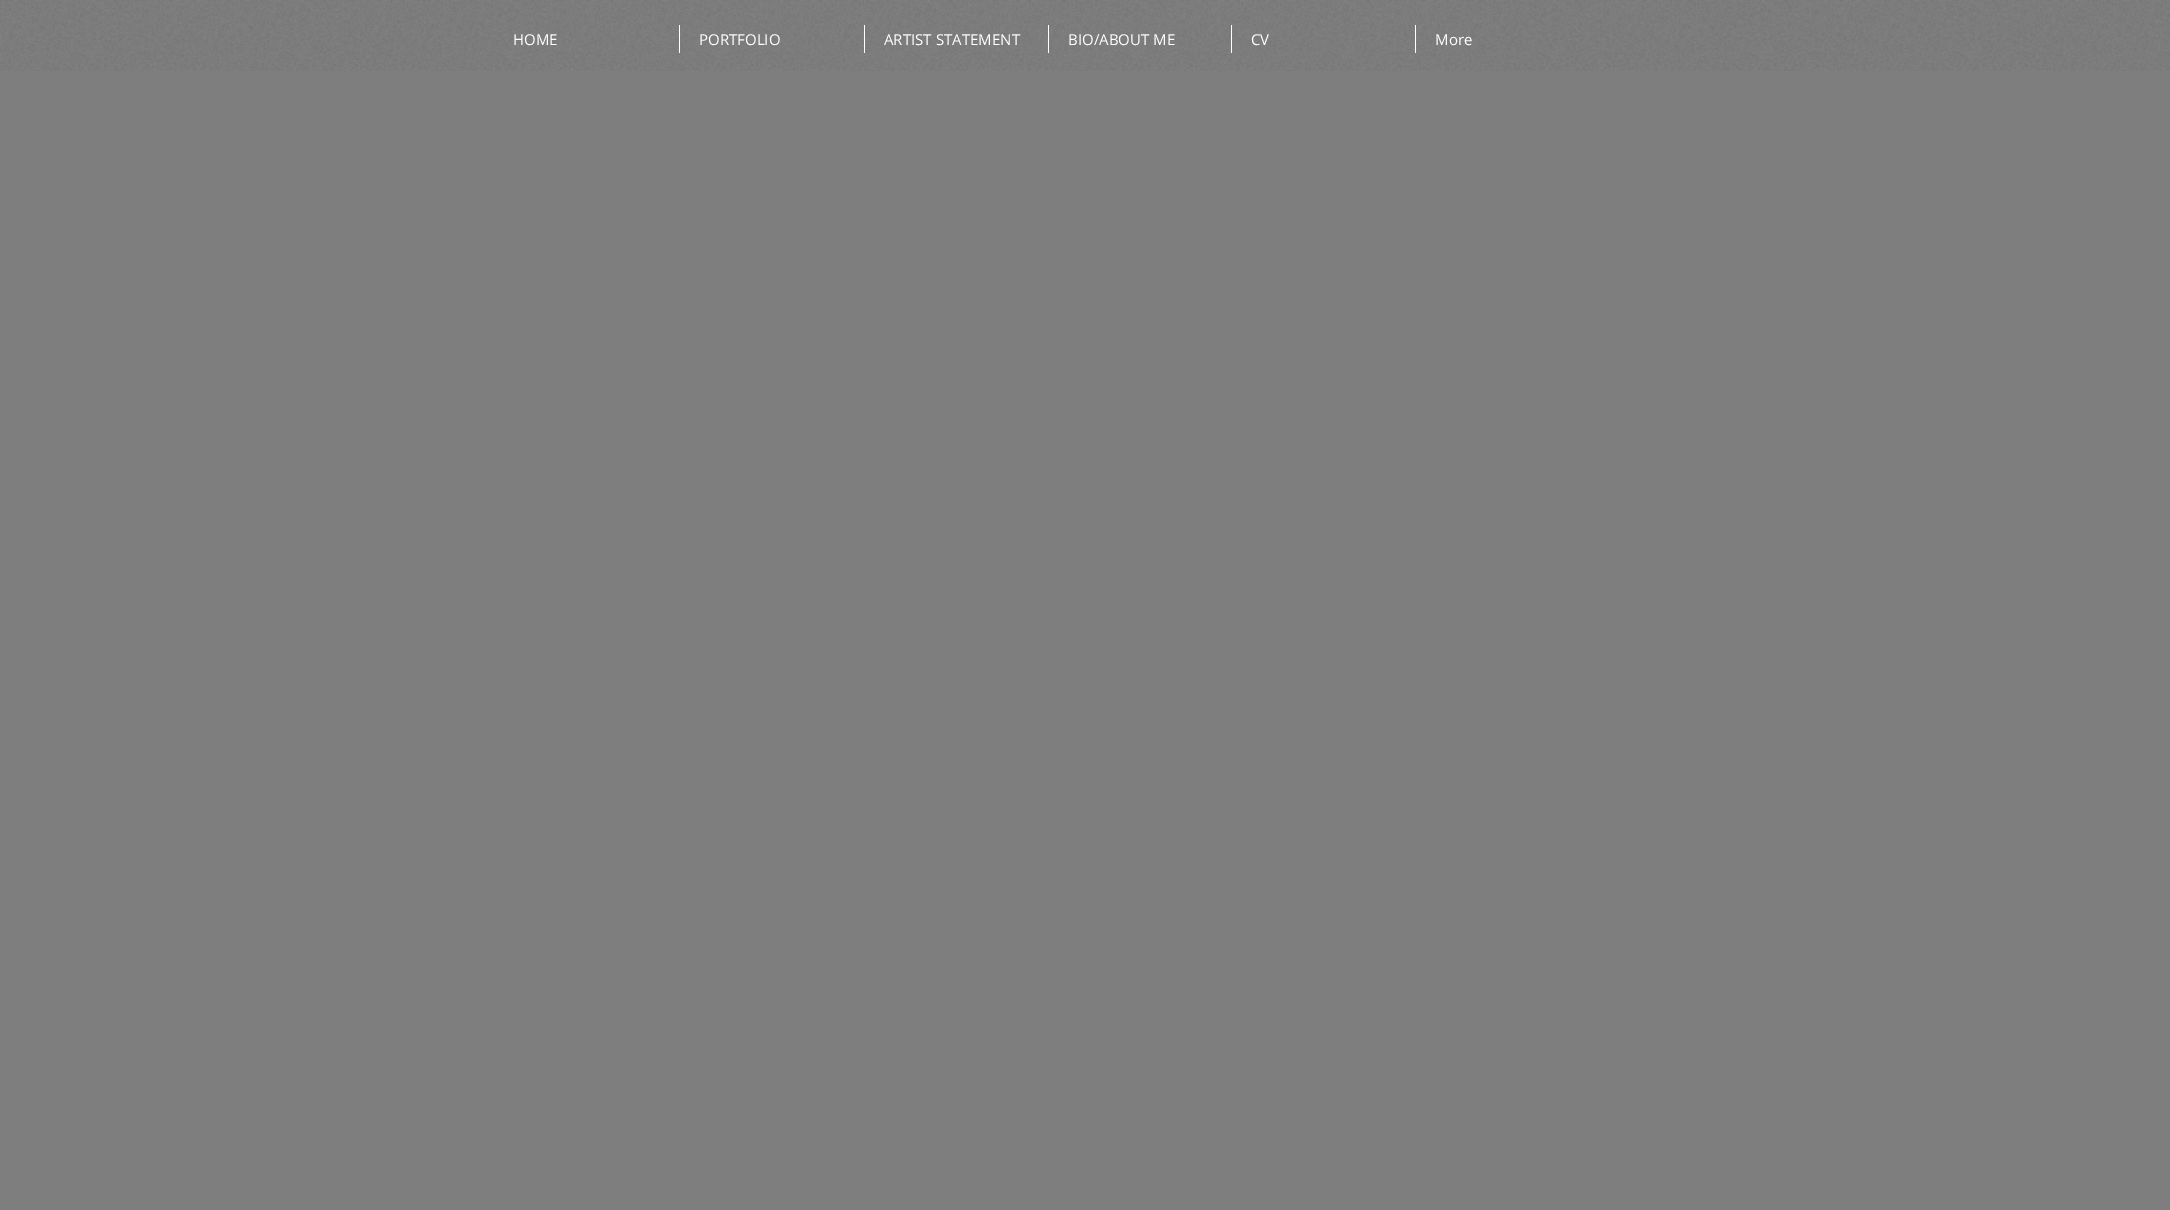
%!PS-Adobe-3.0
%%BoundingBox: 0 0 2170 1210
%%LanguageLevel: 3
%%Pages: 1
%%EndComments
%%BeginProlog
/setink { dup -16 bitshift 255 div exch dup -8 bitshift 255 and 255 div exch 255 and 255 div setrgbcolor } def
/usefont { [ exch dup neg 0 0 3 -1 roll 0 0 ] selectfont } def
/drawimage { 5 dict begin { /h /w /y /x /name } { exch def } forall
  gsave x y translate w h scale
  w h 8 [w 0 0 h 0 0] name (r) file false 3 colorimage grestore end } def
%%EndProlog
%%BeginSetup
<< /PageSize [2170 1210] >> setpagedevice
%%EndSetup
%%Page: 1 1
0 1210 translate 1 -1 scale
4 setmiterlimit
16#7F7E7E setink
0 0 2170 1210 rectfill
(img1.raw) 0 0 2170 71 drawimage
/OpenSans-Regular 15 usefont
16#FFFFFF setink
513 45 moveto (HOME) show
679 25 1 28 rectfill
699 45 moveto (PORTFOLIO) show
864 25 1 28 rectfill
884 45 moveto (ARTIST STATEMENT) show
1048 25 1 28 rectfill
1068 45 moveto (BIO/ABOUT ME) show
1231 25 1 28 rectfill
1251 45 moveto (CV) show
1415 25 1 28 rectfill
1435 45 moveto (More) show
showpage
%%EOF
